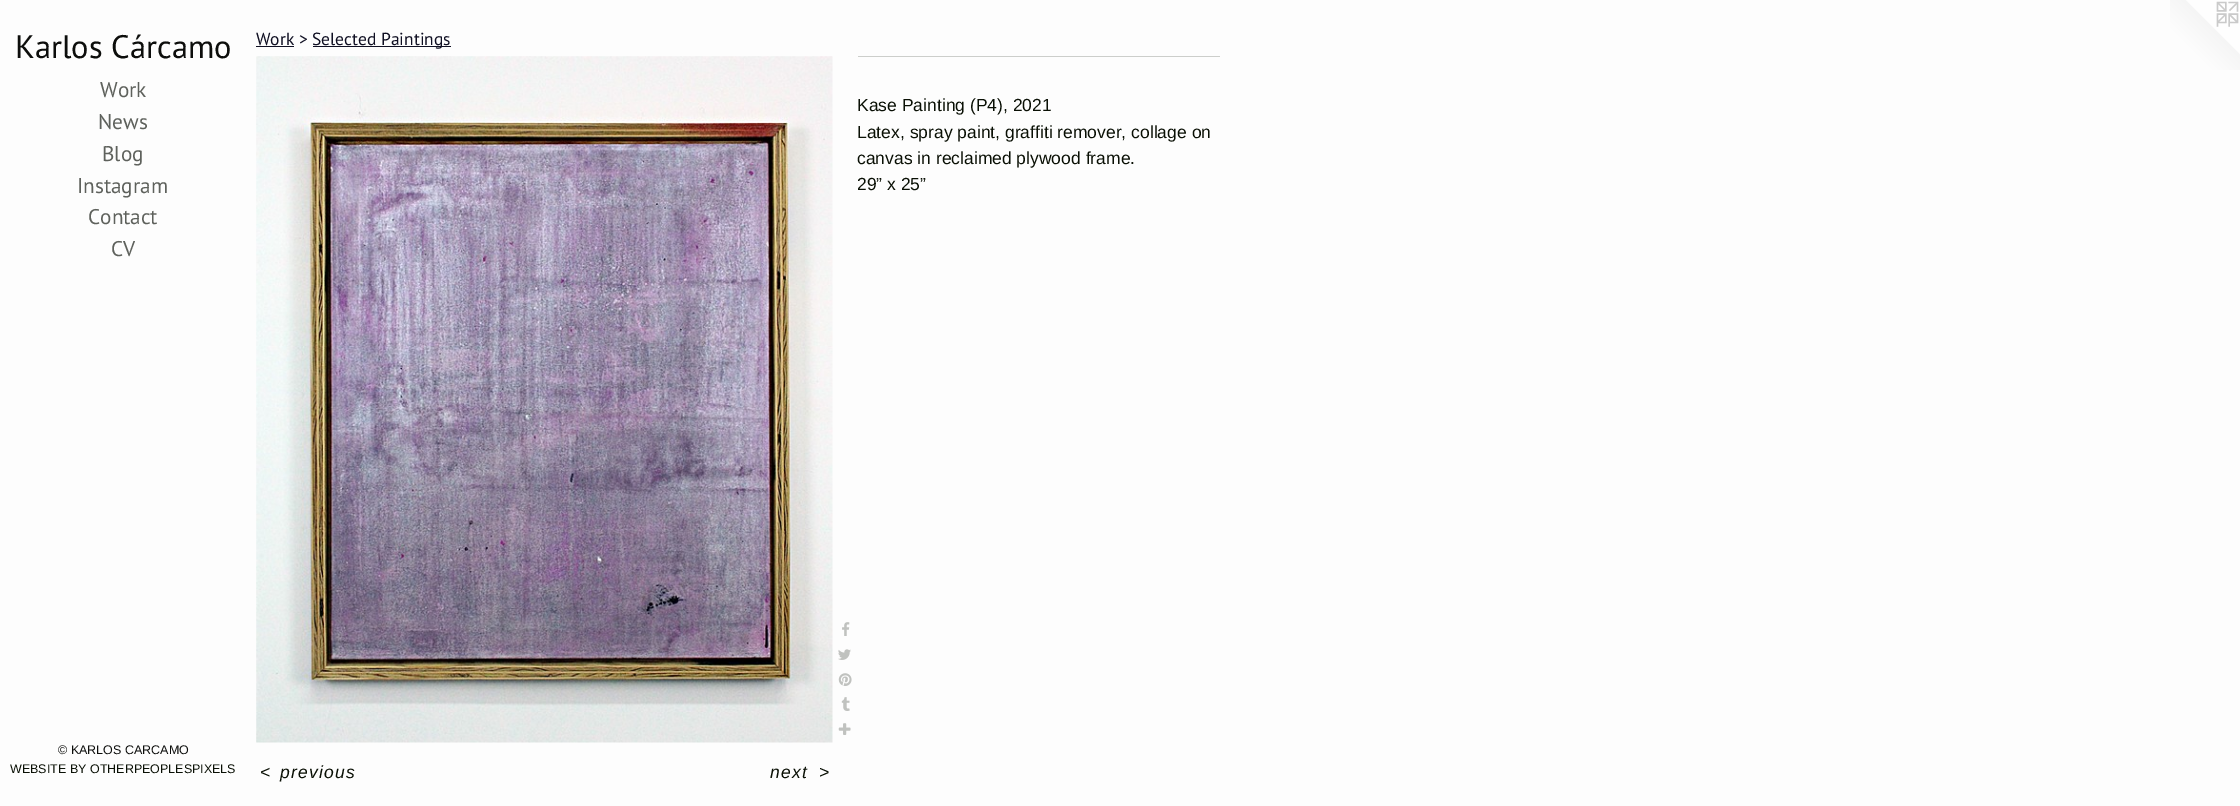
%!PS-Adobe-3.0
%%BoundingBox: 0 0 2240 806
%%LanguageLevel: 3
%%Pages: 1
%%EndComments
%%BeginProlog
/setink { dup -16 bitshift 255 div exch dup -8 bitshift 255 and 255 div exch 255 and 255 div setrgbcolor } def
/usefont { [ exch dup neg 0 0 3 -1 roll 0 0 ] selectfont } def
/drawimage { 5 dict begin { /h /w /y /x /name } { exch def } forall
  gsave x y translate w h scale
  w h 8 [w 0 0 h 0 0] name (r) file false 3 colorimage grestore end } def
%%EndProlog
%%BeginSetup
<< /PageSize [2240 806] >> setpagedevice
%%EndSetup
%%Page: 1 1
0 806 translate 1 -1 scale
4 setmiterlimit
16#FDFDFD setink
0 0 2240 806 rectfill
/PTSans-Regular 32.5 usefont
16#0D0E0C setink
15 58 moveto (Karlos Cárcamo) show
/PTSans-Regular 21.25 usefont
16#5E615C setink
[
    [(Work) 100 97]
    [(News) 98 129]
    [(Blog) 102 161]
    [(Instagram) 77 193]
    [(Contact) 88 224]
    [(CV) 111 256]
] { aload pop moveto show } forall
/LiberationSans-Regular 12.5 usefont
16#0D0E0C setink
58 754 moveto (© KARLOS CARCAMO) show
16#0A1005 setink
10 773 moveto (WEBSITE BY OTHERPEOPLESPIXELS) show
/PTSans-Regular 17.5 usefont
16#101023 setink
256 45 moveto (Work >) show
256 46 38 1 rectfill
313 46 138 1 rectfill
312 45 moveto (Selected Paintings) show
16#CCCECB setink
858 56 362 1 rectfill
/LiberationSans-Regular 17.5 usefont
16#0A1005 setink
[
    [(Kase Painting \(P4\), 2021) 857 111]
    [(Latex, spray paint, graffiti remover, collage on) 857 138]
    [(canvas in reclaimed plywood frame.) 857 164]
    [(29” x 25”) 857 190]
] { aload pop moveto show } forall
(img1.raw) 256 56 577 687 drawimage
(img2.raw) 842 622 8 14 drawimage
(img3.raw) 838 649 13 11 drawimage
(img4.raw) 838 673 14 13 drawimage
(img5.raw) 841 697 9 14 drawimage
(img6.raw) 838 723 13 12 drawimage
/LiberationSans-Italic 17.5 usefont
260 778 moveto 1.25 0 (<) ashow
280 778 moveto 1.25 0 (previous) ashow
770 778 moveto 1.25 0 (next) ashow
819 778 moveto 1.25 0 (>) ashow
(img7.raw) 2170 0 70 70 drawimage
showpage
%%EOF
